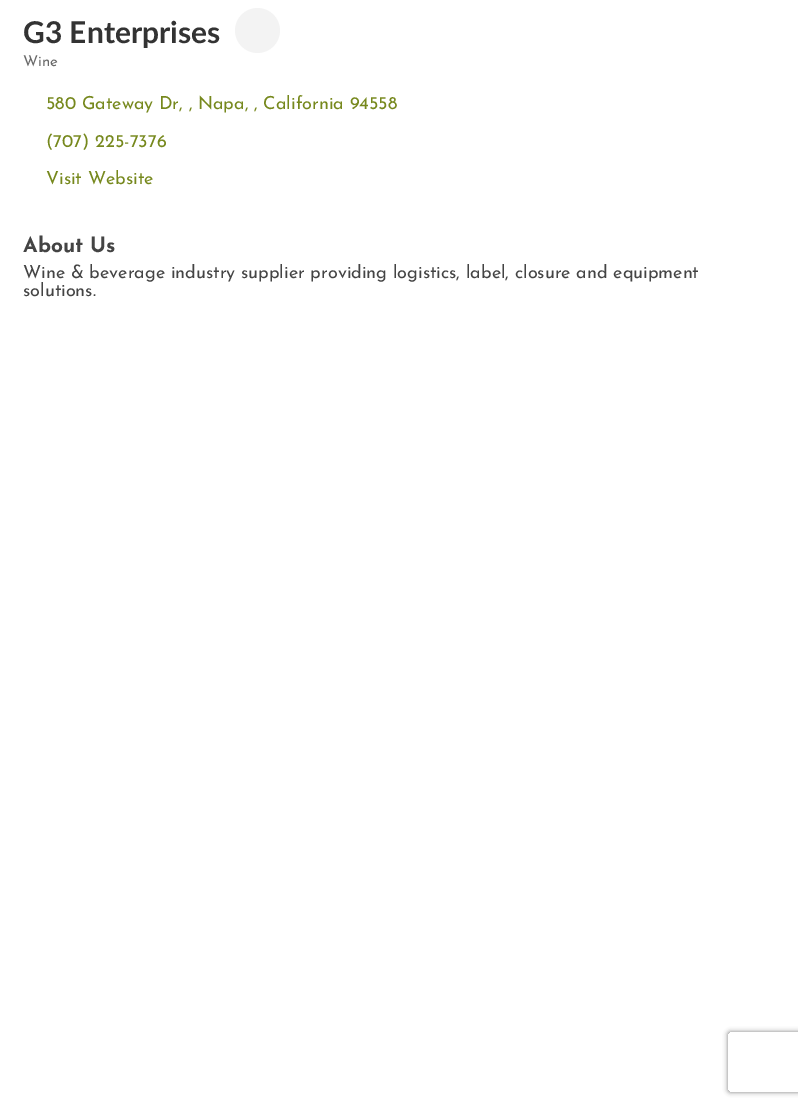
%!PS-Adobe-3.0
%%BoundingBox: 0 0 798 1106
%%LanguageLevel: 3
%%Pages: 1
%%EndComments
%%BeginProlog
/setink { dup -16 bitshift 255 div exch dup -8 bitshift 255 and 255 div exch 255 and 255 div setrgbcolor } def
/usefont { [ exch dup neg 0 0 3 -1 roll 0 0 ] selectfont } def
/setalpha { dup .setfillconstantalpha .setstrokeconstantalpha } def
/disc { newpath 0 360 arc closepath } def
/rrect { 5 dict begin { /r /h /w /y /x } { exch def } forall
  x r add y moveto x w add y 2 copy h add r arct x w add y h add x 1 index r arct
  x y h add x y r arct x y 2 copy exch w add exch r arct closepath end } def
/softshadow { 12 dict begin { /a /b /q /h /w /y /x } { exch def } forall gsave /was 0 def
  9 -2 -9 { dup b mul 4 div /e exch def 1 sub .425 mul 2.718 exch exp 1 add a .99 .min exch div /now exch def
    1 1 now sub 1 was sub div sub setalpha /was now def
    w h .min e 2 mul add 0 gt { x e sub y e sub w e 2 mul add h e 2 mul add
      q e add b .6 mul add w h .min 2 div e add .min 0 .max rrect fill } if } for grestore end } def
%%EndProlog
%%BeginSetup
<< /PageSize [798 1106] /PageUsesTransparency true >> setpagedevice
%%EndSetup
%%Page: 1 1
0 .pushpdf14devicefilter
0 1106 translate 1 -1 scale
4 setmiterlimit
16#FFFFFF setink
0 0 798 1106 rectfill
/Lato-Bold 30 usefont
16#333333 setink
23 43 moveto (G3 Enterprises) show
16#F3F3F3 setink
257.5 30.5 22.5 disc fill
/JosefinSans-Regular 15 usefont
16#696969 setink
23 66 moveto (Wine) show
/JosefinSans-Regular 18 usefont
16#76881D setink
[
    [(580 Gateway Dr, , Napa, , California 94558) 46 109]
    [(\(707\) 225-7376) 46 147]
    [(Visit Website) 46 184]
] { aload pop moveto show } forall
/JosefinSans-Bold 21 usefont
16#444444 setink
23 252 moveto (About Us) show
/JosefinSans-Regular 18 usefont
23 278 moveto (Wine & beverage industry supplier providing logistics, label, closure and equipment) show
23 296 moveto (solutions.) show
gsave
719 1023 moveto 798 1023 lineto 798 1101 lineto 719 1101 lineto closepath 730 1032 moveto 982 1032 lineto 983 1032 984 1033 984 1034 curveto 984 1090 lineto 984 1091 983 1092 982 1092 curveto 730 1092 lineto 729 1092 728 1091 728 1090 curveto 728 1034 lineto 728 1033 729 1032 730 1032 curveto closepath eoclip newpath
16#808080 setink
728 1032 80 60 2 2.5 1 softshadow
grestore
.poppdf14devicefilter showpage
%%EOF
